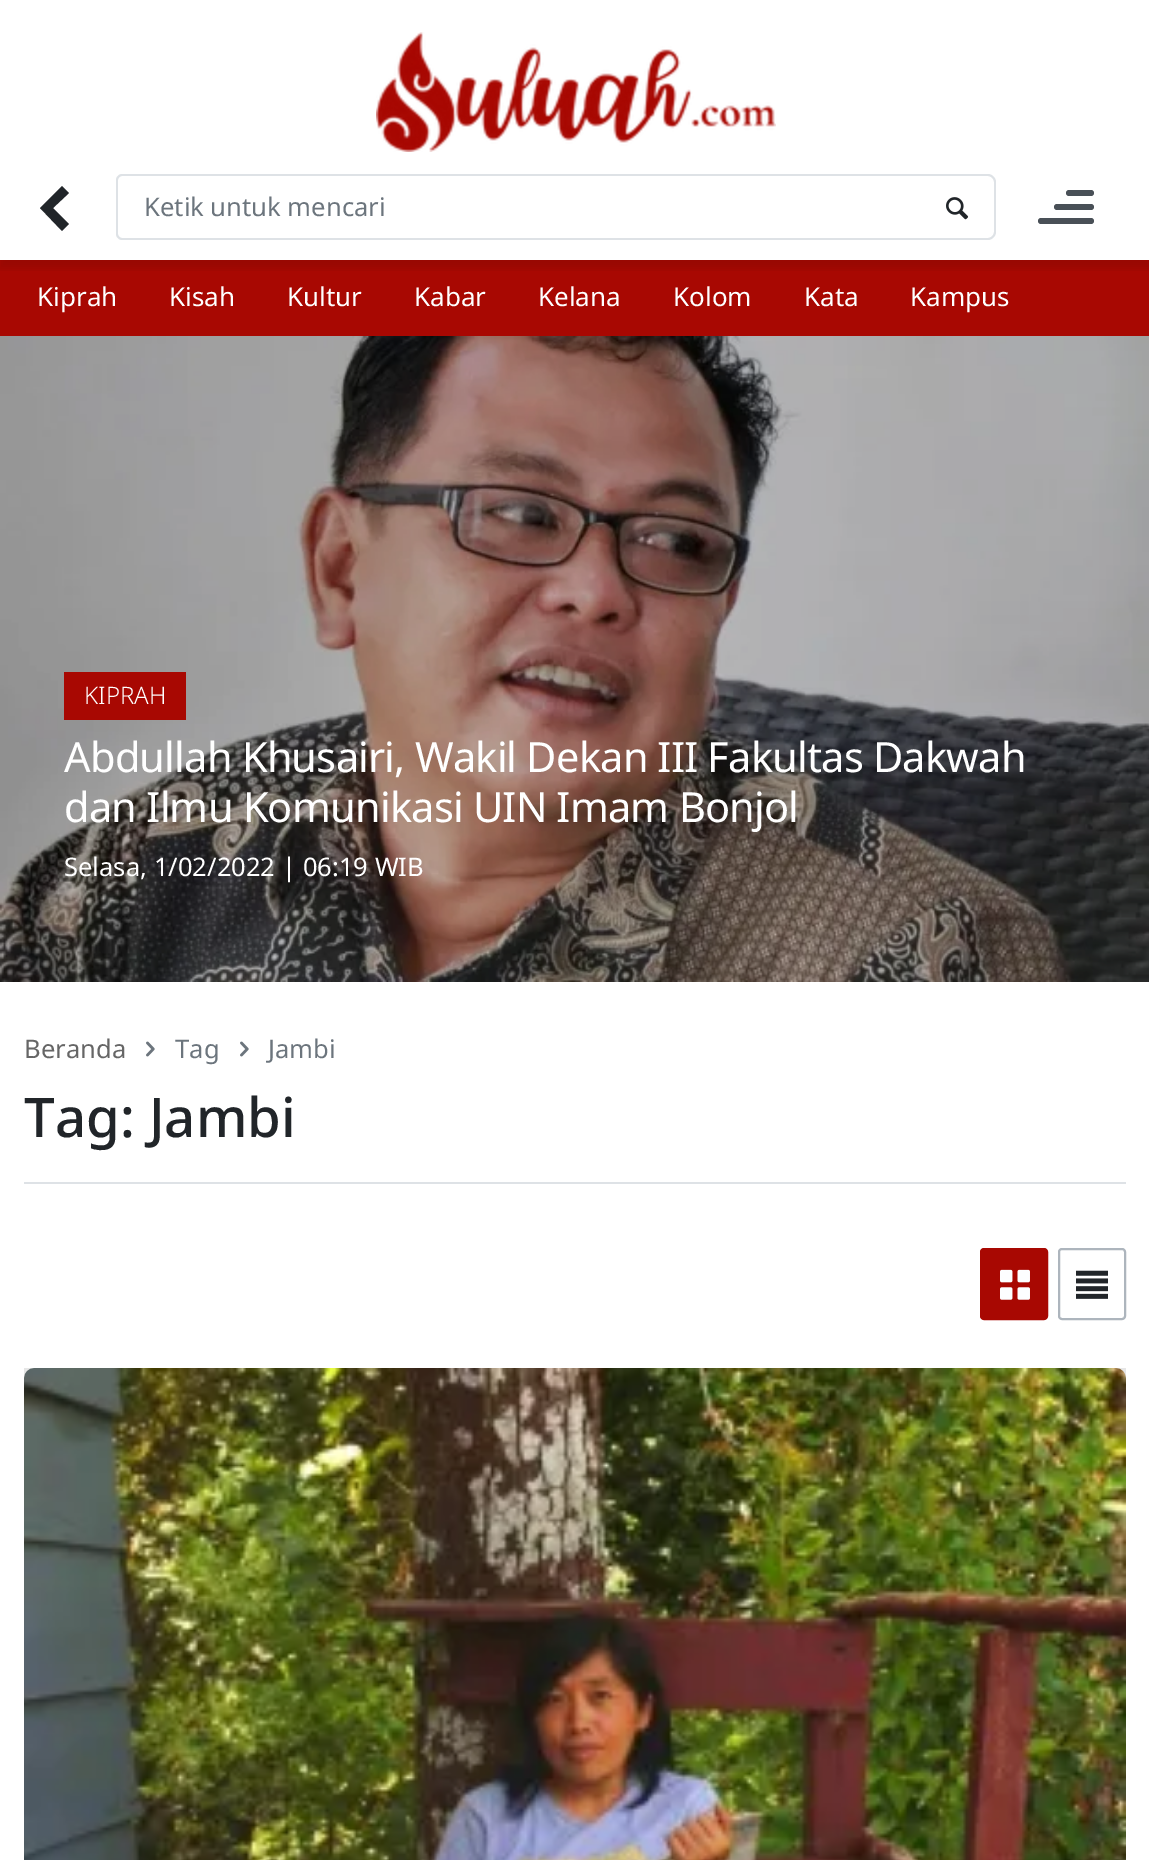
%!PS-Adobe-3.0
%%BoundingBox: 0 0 1149 1860
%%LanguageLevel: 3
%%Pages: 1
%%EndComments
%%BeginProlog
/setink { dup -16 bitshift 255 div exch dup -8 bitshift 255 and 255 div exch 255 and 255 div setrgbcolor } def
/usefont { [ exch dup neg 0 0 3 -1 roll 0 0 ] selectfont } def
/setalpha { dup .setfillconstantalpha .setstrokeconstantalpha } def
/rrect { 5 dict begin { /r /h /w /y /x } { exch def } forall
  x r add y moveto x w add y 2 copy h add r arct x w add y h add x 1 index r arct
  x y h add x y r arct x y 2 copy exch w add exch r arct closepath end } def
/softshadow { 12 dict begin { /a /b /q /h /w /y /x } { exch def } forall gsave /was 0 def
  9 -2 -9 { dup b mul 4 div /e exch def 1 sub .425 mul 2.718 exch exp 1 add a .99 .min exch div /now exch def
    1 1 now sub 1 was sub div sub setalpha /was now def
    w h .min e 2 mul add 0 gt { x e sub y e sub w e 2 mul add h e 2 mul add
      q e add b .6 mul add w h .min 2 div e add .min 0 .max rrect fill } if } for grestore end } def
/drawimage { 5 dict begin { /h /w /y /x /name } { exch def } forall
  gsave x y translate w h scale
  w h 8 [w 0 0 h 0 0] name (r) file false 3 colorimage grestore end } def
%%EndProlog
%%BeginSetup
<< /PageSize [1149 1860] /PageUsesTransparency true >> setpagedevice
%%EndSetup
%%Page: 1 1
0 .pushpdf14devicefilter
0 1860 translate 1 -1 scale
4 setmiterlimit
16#FFFFFF setink
0 0 1149 1860 rectfill
16#A80802 setink
0 260 1149 76 rectfill
gsave
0 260 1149 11 rectclip
16#000000 setink
0 160 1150 108 0 4 0.1 softshadow
grestore
(img1.raw) 376 32 400 120 drawimage
16#212529 setink
40 208 moveto 62 186 lineto 69 193 lineto 53 208 lineto 69 224 lineto 62 231 lineto closepath fill
16#DEE2E6 setink
918 174 moveto 988 174 lineto 992 174 996 178 996 182 curveto 996 232 lineto 996 236 992 240 988 240 curveto 918 240 lineto closepath 918 176 moveto 988 176 lineto 991 176 994 179 994 182 curveto 994 232 lineto 994 235 991 238 988 238 curveto 918 238 lineto closepath eofill
122 174 moveto 920 174 lineto 920 240 lineto 122 240 lineto 119 240 116 237 116 234 curveto 116 180 lineto 116 177 119 174 122 174 curveto closepath 122 176 moveto 920 176 lineto 920 238 lineto 122 238 lineto 120 238 118 236 118 234 curveto 118 180 lineto 118 178 120 176 122 176 curveto closepath eofill
/NotoSans-Regular 25.6 usefont
16#6C757D setink
144 216 moveto (Ketik untuk mencari) show
(img2.raw) 946 197 23 23 drawimage
16#495057 setink
1066 190 28 6 3 rrect fill
1054 204 40 6 3 rrect fill
1038 218 56 6 3 rrect fill
/NotoSans-Regular 26 usefont
16#FFFFFF setink
[
    [(Kiprah) 37 306]
    [(Kisah) 169 306]
    [(Kultur) 287 306]
    [(Kabar) 414 306]
    [(Kelana) 538 306]
    [(Kolom) 673 306]
    [(Kata) 804 306]
    [(Kampus) 910 306]
] { aload pop moveto show } forall
(img3.raw) 0 336 1149 646 drawimage
16#A80802 setink
64 672 122 48 rectfill
/NotoSans-Light 24 usefont
16#FFFFFF setink
84 704 moveto (KIPRAH) show
/NotoSans-Regular 41.6 usefont
64 772 moveto -0.8 0 (Abdullah Khusairi, Wakil Dekan III Fakultas Dakwah) ashow
64 822 moveto -0.8 0 (dan Ilmu Komunikasi UIN Imam Bonjol) ashow
/NotoSans-Regular 25.6 usefont
64 876 moveto (Selasa, 1/02/2022 | 06:19 WIB) show
16#666666 setink
24 1058 moveto (Beranda) show
(img4.raw) 146 1041 9 16 drawimage
16#6C757D setink
175 1058 moveto (Tag) show
(img4.raw) 240 1041 9 16 drawimage
268 1058 moveto (Jambi) show
16#DEE2E6 setink
24 1182 1102 2 rectfill
/NotoSans-Medium 54.5 usefont
16#212529 setink
24 1137 moveto (Tag: Jambi) show
16#A80802 setink
981 1249 66 70 3 rrect gsave fill grestore
2 setlinewidth
stroke
(img5.raw) 1000 1269 30 31 drawimage
16#ADB5BD setink
1059 1249 66 70 3 rrect stroke
(img6.raw) 1076 1270 32 29 drawimage
16#E6E6E6 setink
24 1368 1102 10 rectfill
(img7.raw) 24 1368 1102 492 drawimage
.poppdf14devicefilter showpage
%%EOF
